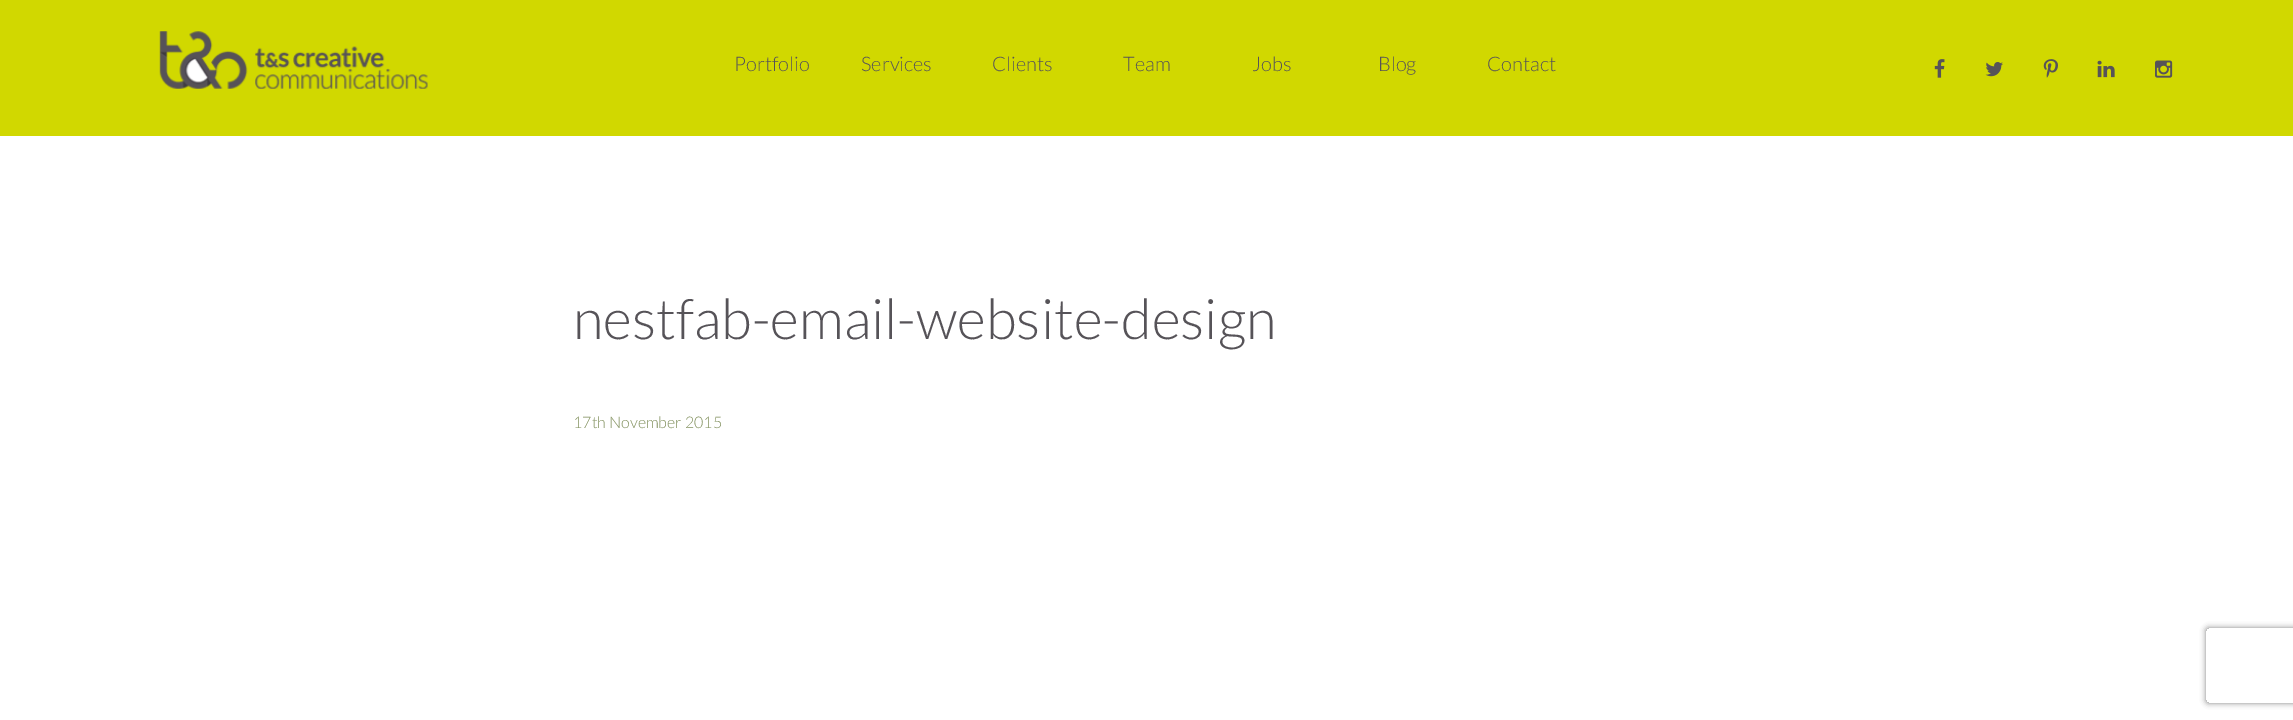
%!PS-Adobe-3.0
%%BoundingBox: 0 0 2293 720
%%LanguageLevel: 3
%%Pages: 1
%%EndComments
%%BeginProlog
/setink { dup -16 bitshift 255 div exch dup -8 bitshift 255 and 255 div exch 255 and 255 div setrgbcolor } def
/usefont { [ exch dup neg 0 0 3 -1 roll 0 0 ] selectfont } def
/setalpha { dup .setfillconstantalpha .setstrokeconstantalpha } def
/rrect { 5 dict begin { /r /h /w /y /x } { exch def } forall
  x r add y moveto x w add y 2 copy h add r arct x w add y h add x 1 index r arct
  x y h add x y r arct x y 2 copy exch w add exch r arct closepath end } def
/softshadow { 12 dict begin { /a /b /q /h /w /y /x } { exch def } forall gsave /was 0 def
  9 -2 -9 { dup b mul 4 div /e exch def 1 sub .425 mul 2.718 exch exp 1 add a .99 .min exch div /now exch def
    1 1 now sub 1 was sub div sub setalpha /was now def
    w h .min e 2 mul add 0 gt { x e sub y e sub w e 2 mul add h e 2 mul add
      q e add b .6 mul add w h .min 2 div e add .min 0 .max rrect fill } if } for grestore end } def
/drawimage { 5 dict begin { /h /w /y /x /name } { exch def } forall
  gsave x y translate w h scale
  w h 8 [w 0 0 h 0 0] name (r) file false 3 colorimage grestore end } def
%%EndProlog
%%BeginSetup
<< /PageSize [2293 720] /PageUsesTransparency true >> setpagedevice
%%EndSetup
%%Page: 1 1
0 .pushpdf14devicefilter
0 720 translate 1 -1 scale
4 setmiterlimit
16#FFFFFF setink
0 0 2293 720 rectfill
16#D1D800 setink
0 0 2293 136 rectfill
(img1.raw) 159 31 269 58 drawimage
/Lato-Light 20 usefont
16#565358 setink
[
    [(Portfolio) 734 71]
    [(Services) 861 71]
    [(Clients) 992 71]
    [(Team) 1123 71]
    [(Jobs) 1252 71]
    [(Blog) 1378 71]
    [(Contact) 1487 71]
] { aload pop moveto show } forall
(img2.raw) 1934 59 11 19 drawimage
(img3.raw) 1985 62 18 15 drawimage
(img4.raw) 2043 59 15 19 drawimage
(img5.raw) 2097 60 18 18 drawimage
(img6.raw) 2155 60 18 18 drawimage
/Lato-Light 56 usefont
573 339 moveto (nestfab-email-website-design) show
/Lato-Light 16 usefont
16#808F5C setink
573 428 moveto (17th November 2015) show
gsave
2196 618 moveto 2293 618 lineto 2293 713 lineto 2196 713 lineto closepath 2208.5 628 moveto 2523.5 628 lineto 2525 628 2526 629 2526 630.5 curveto 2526 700.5 lineto 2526 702 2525 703 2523.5 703 curveto 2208.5 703 lineto 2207 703 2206 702 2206 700.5 curveto 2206 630.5 lineto 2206 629 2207 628 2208.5 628 curveto closepath eoclip newpath
16#808080 setink
2206 628 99 75 2.5 3 1 softshadow
grestore
.poppdf14devicefilter showpage
%%EOF
